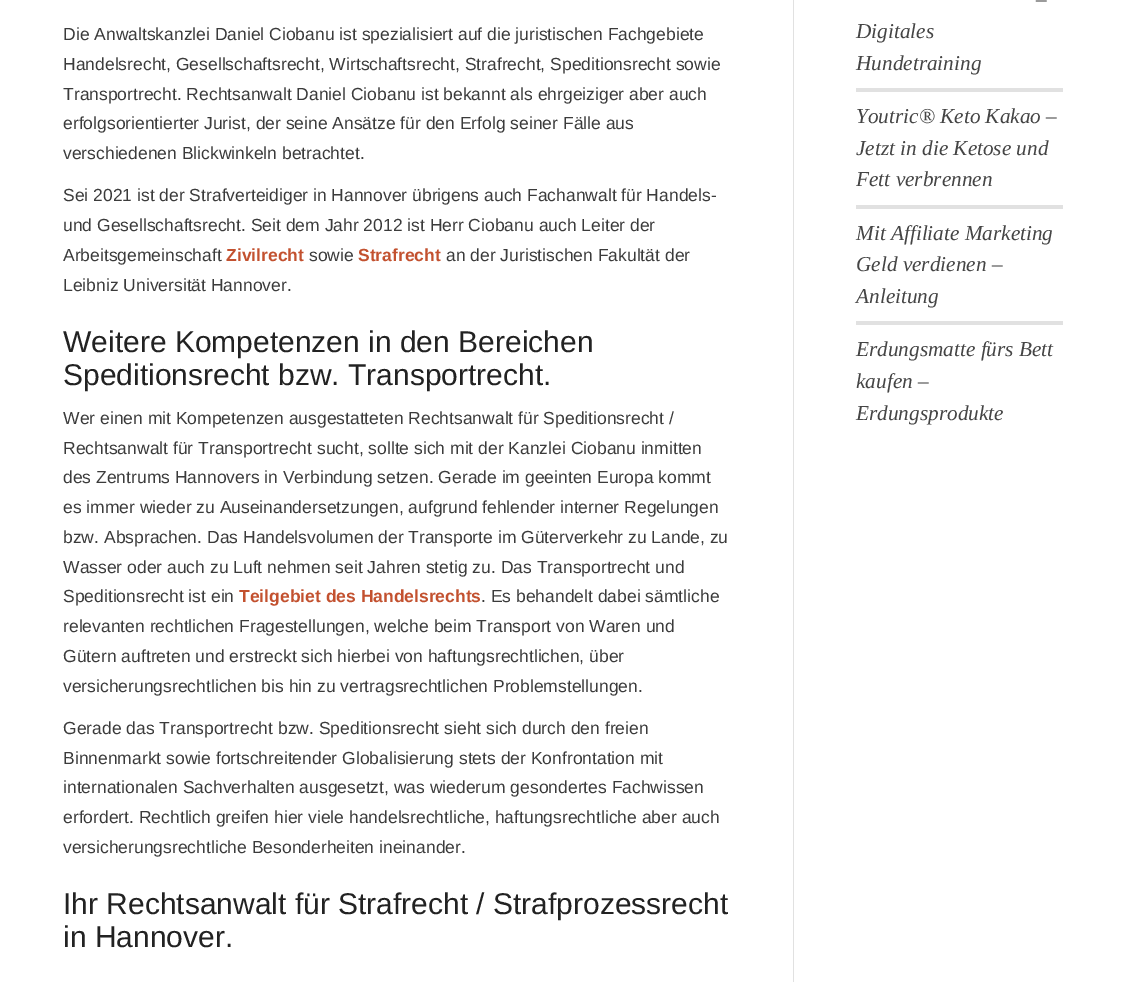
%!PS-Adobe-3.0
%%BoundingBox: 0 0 1125 982
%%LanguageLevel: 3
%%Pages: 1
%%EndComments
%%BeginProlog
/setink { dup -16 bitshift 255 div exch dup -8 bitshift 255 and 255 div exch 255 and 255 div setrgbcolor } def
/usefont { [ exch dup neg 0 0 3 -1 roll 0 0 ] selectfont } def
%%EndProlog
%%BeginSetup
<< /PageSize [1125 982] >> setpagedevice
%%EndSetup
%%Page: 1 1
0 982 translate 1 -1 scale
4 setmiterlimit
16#FFFFFF setink
0 0 1125 982 rectfill
16#E1E1E1 setink
793 0 1 982 rectfill
/LiberationSans-Regular 17.5 usefont
16#3B3B3B setink
[
    [(Die Anwaltskanzlei Daniel Ciobanu ist spezialisiert auf die juristischen Fachgebiete) 63 40]
    [(Handelsrecht, Gesellschaftsrecht, Wirtschaftsrecht, Strafrecht, Speditionsrecht sowie) 63 70]
    [(Transportrecht. Rechtsanwalt Daniel Ciobanu ist bekannt als ehrgeiziger aber auch) 63 100]
    [(erfolgsorientierter Jurist, der seine Ansätze für den Erfolg seiner Fälle aus) 63 129]
    [(verschiedenen Blickwinkeln betrachtet.) 63 159]
    [(Sei 2021 ist der Strafverteidiger in Hannover übrigens auch Fachanwalt für Handels-) 63 201]
    [(und Gesellschaftsrecht. Seit dem Jahr 2012 ist Herr Ciobanu auch Leiter der) 63 231]
    [(Arbeitsgemeinschaft) 63 261]
] { aload pop moveto show } forall
/LiberationSans-Bold 17.5 usefont
16#C3512F setink
226 261 moveto (Zivilrecht) show
/LiberationSans-Regular 17.5 usefont
16#3B3B3B setink
309 261 moveto (sowie) show
/LiberationSans-Bold 17.5 usefont
16#C3512F setink
358 261 moveto (Strafrecht) show
/LiberationSans-Regular 17.5 usefont
16#3B3B3B setink
446 261 moveto (an der Juristischen Fakultät der) show
63 291 moveto (Leibniz Universität Hannover.) show
/LiberationSans-Regular 30 usefont
16#222222 setink
63 352 moveto (Weitere Kompetenzen in den Bereichen) show
63 385 moveto (Speditionsrecht bzw. Transportrecht.) show
/LiberationSans-Regular 17.5 usefont
16#3B3B3B setink
[
    [(Wer einen mit Kompetenzen ausgestatteten Rechtsanwalt für Speditionsrecht /) 63 424]
    [(Rechtsanwalt für Transportrecht sucht, sollte sich mit der Kanzlei Ciobanu inmitten) 63 454]
    [(des Zentrums Hannovers in Verbindung setzen. Gerade im geeinten Europa kommt) 63 483]
    [(es immer wieder zu Auseinandersetzungen, aufgrund fehlender interner Regelungen) 63 513]
    [(bzw. Absprachen. Das Handelsvolumen der Transporte im Güterverkehr zu Lande, zu) 63 543]
    [(Wasser oder auch zu Luft nehmen seit Jahren stetig zu. Das Transportrecht und) 63 573]
    [(Speditionsrecht ist ein) 63 602]
] { aload pop moveto show } forall
/LiberationSans-Bold 17.5 usefont
16#C3512F setink
239 602 moveto (Teilgebiet des Handelsrechts) show
/LiberationSans-Regular 17.5 usefont
16#3B3B3B setink
[
    [(. Es behandelt dabei sämtliche) 481 602]
    [(relevanten rechtlichen Fragestellungen, welche beim Transport von Waren und) 63 632]
    [(Gütern auftreten und erstreckt sich hierbei von haftungsrechtlichen, über) 63 662]
    [(versicherungsrechtlichen bis hin zu vertragsrechtlichen Problemstellungen.) 63 692]
    [(Gerade das Transportrecht bzw. Speditionsrecht sieht sich durch den freien) 63 734]
    [(Binnenmarkt sowie fortschreitender Globalisierung stets der Konfrontation mit) 63 764]
    [(internationalen Sachverhalten ausgesetzt, was wiederum gesondertes Fachwissen) 63 793]
    [(erfordert. Rechtlich greifen hier viele handelsrechtliche, haftungsrechtliche aber auch) 63 823]
    [(versicherungsrechtliche Besonderheiten ineinander.) 63 853]
] { aload pop moveto show } forall
/LiberationSans-Regular 30 usefont
16#222222 setink
63 914 moveto (Ihr Rechtsanwalt für Strafrecht / Strafprozessrecht) show
63 947 moveto (in Hannover.) show
/LiberationSerif-Italic 21.25 usefont
16#454545 setink
[
    [(–) 1036 6]
    [(Digitales) 856 38]
    [(Hundetraining) 856 70]
] { aload pop moveto show } forall
16#E1E1E1 setink
856 88 207 4 rectfill
16#454545 setink
[
    [(Youtric® Keto Kakao –) 856 123]
    [(Jetzt in die Ketose und) 856 155]
    [(Fett verbrennen) 856 186]
] { aload pop moveto show } forall
16#E1E1E1 setink
856 205 207 4 rectfill
16#454545 setink
[
    [(Mit Affiliate Marketing) 856 240]
    [(Geld verdienen –) 856 271]
    [(Anleitung) 856 303]
] { aload pop moveto show } forall
16#E1E1E1 setink
856 321 207 4 rectfill
16#454545 setink
[
    [(Erdungsmatte fürs Bett) 856 356]
    [(kaufen –) 856 388]
    [(Erdungsprodukte) 856 420]
] { aload pop moveto show } forall
showpage
%%EOF
